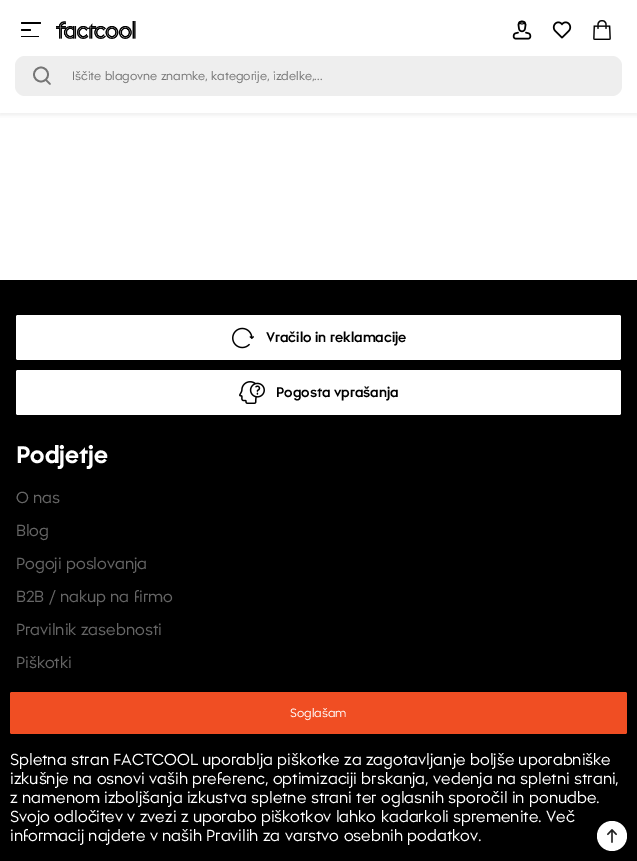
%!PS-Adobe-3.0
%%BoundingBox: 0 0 637 861
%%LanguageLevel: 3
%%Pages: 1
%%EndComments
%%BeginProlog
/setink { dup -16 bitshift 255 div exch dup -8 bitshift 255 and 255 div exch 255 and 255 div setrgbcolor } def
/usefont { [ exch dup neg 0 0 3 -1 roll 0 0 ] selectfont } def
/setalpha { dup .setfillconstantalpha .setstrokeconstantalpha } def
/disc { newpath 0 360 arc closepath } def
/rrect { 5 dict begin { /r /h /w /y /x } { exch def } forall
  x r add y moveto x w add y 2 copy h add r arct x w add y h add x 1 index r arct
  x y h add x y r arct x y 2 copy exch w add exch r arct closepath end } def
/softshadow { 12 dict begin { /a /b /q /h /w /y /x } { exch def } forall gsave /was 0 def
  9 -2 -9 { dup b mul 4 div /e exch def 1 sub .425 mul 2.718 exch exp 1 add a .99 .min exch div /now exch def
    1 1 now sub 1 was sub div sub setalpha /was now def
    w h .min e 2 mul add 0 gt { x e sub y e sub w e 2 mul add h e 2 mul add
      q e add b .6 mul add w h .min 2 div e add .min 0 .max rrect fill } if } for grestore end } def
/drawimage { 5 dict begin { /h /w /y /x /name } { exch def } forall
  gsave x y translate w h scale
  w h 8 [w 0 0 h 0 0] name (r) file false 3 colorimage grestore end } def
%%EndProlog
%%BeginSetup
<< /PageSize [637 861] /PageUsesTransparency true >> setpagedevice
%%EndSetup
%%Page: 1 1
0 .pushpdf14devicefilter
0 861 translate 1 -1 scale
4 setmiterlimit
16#FFFFFF setink
0 0 637 861 rectfill
gsave
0 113 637 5 rectclip
16#DCDCDC setink
0 2 637 113 0 2 0.5 softshadow
grestore
16#000000 setink
21 22 20 2 1 rrect fill
21 29 10 2 1 rrect fill
21 36 18 1 0.5 rrect fill
(img1.raw) 56 21 80 18 drawimage
(img2.raw) 512 20 20 20 drawimage
(img3.raw) 552 21 20 18 drawimage
(img4.raw) 593 20 18 20 drawimage
16#EEEEEE setink
15 56 607 40 10 rrect fill
16#757575 setink
1.7 setlinewidth
41 74.5 7 disc stroke
1 setlinecap
50 84 moveto 46 80 lineto stroke
/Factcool-Regular 12 usefont
72 80 moveto (Iščite blagovne znamke, kategorije, izdelke,...) show
16#000000 setink
0 280 637 581 rectfill
16#FFFFFF setink
16 315 605 45 2 rrect fill
(img5.raw) 232 327 22 22 drawimage
/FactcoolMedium-Medium 14 usefont
16#000000 setink
266 342 moveto (Vračilo in reklamacije) show
16#FFFFFF setink
16 370 605 45 2 rrect fill
(img6.raw) 239 381 26 23 drawimage
16#000000 setink
276 397 moveto (Pogosta vprašanja) show
/Factcool-Bold 24 usefont
16#FFFFFF setink
16 463 moveto (Podjetje) show
/Factcool-Regular 16 usefont
16#666666 setink
[
    [(O nas) 16 503]
    [(Blog) 16 536]
    [(Pogoji poslovanja) 16 569]
    [(B2B / nakup na firmo) 16 602]
    [(Pravilnik zasebnosti) 16 635]
    [(Piškotki) 16 668]
] { aload pop moveto show } forall
16#F04E23 setink
10 692 617 42 2 rrect fill
/Factcool-Regular 12 usefont
16#FFFFFF setink
290 717 moveto (Soglašam) show
/Factcool-Regular 16 usefont
[
    [(Spletna stran FACTCOOL uporablja piškotke za zagotavljanje boljše uporabniške) 10 765]
    [(izkušnje na osnovi vaših preferenc, optimizaciji brskanja, vedenja na spletni strani,) 10 784]
    [(z namenom izboljšanja izkustva spletne strani ter oglasnih sporočil in ponudbe.) 10 803]
    [(Svojo odločitev v zvezi z uporabo piškotkov lahko kadarkoli spremenite. Več) 10 822]
    [(informacij najdete v naših Pravilih za varstvo osebnih podatkov.) 10 841]
] { aload pop moveto show } forall
612 836 15 disc fill
(img7.raw) 607 829 10 14 drawimage
.poppdf14devicefilter showpage
%%EOF
